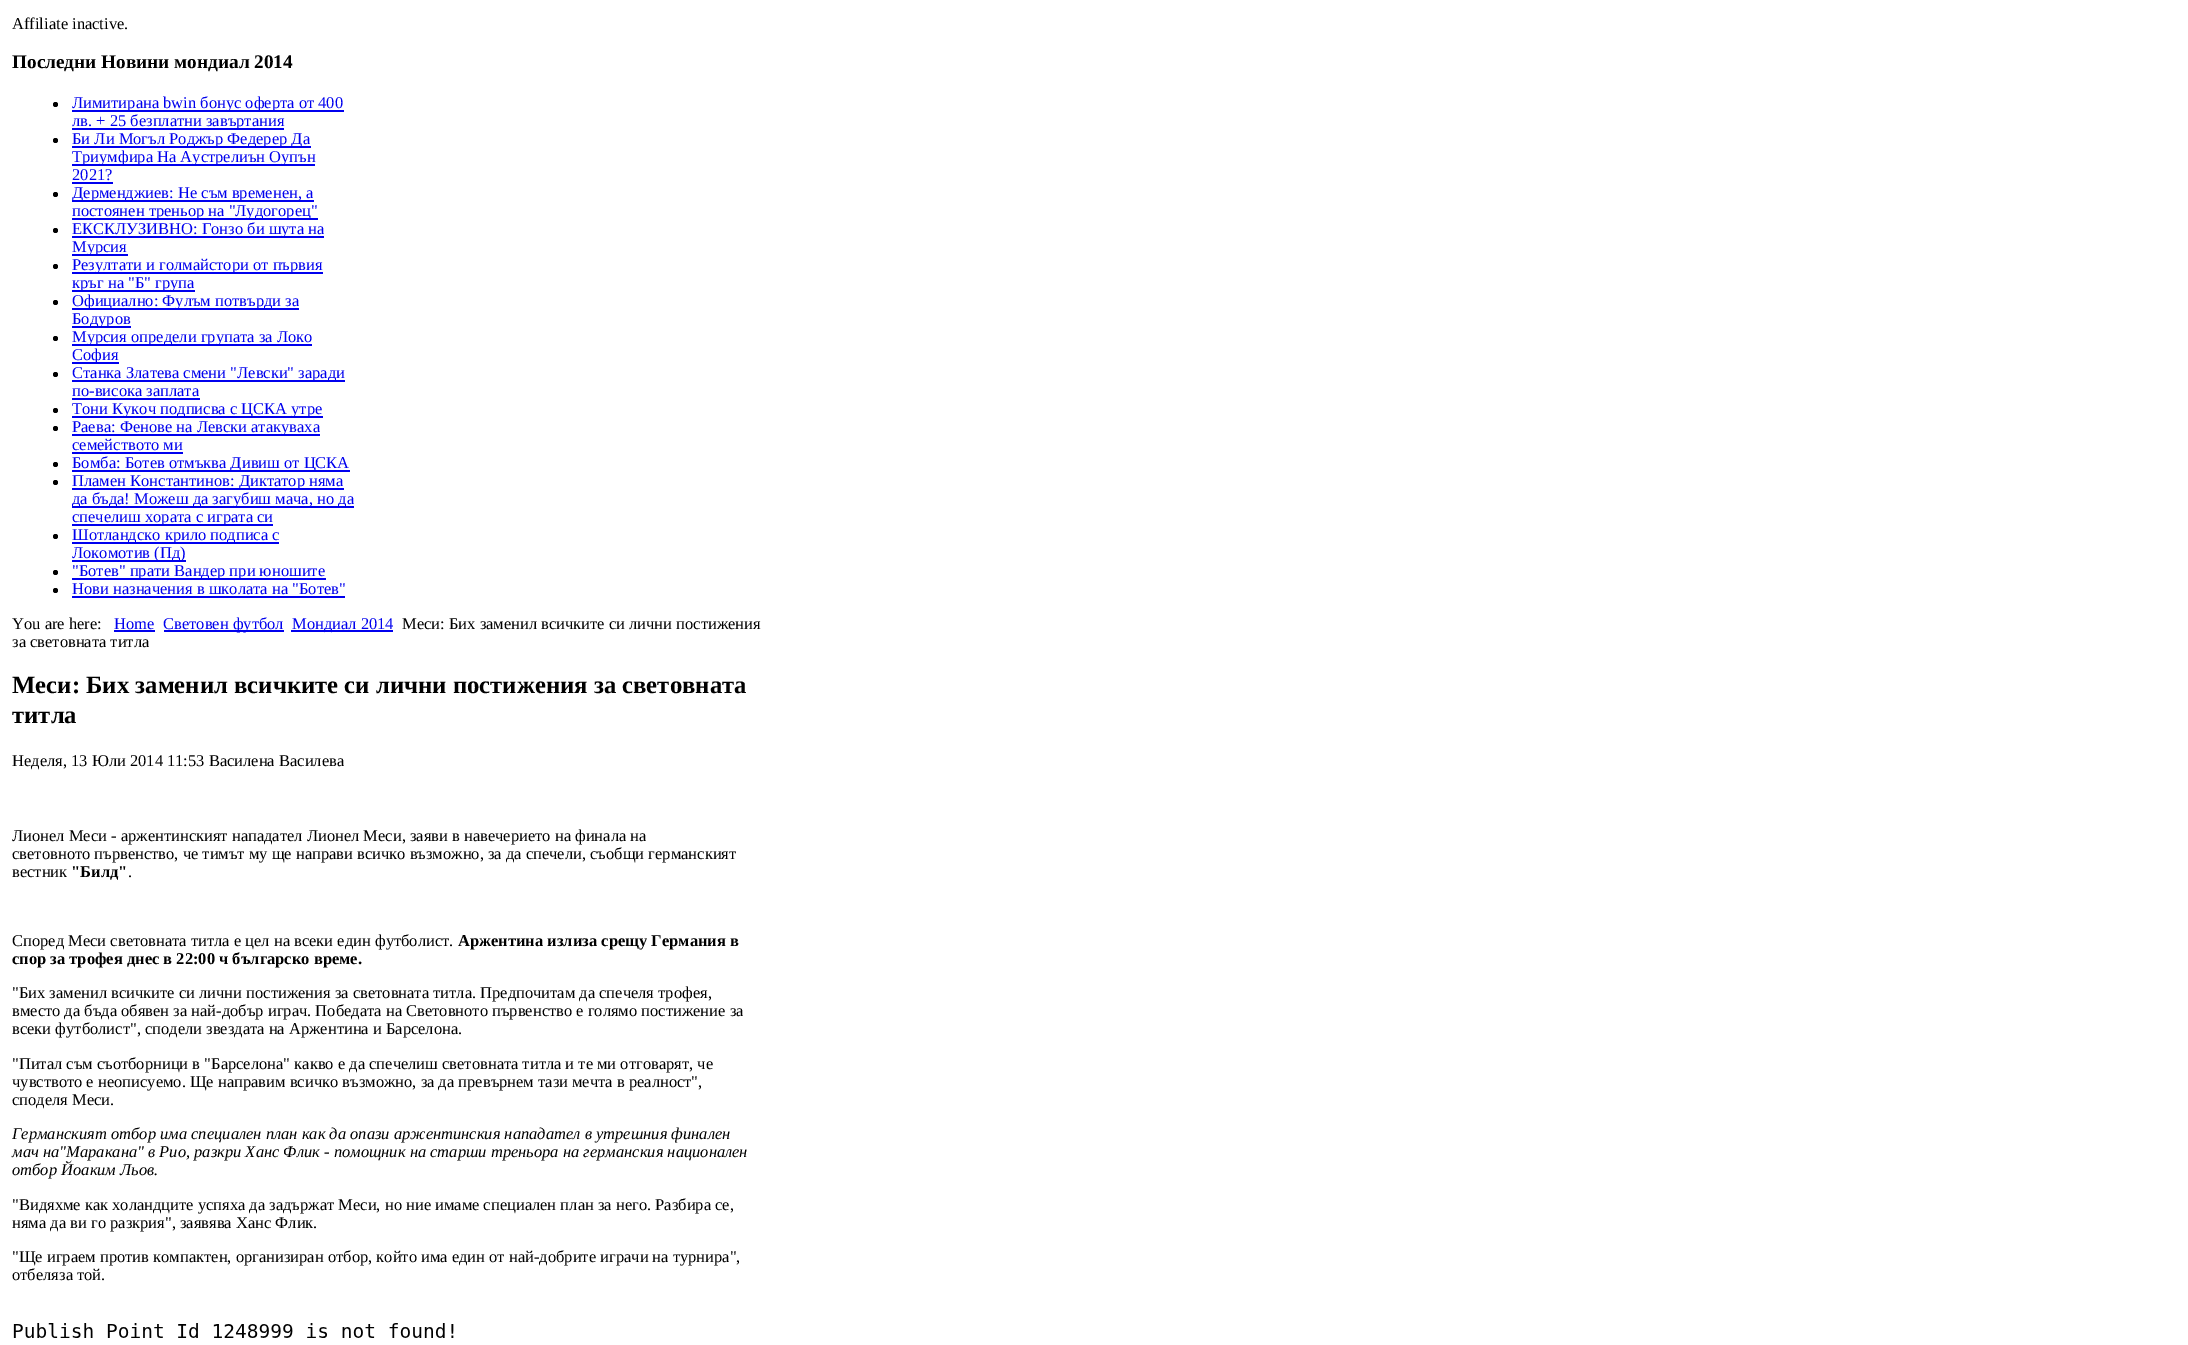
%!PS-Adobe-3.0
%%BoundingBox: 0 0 2188 1345
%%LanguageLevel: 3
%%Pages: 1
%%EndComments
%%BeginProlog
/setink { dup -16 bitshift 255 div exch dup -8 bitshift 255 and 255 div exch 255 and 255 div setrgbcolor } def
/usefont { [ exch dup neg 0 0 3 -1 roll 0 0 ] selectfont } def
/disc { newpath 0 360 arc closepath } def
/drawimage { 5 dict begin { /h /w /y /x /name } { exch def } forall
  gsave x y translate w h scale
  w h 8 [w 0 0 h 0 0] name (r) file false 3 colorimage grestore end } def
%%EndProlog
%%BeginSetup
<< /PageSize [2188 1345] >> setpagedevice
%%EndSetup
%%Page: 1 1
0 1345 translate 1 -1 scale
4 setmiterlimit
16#FFFFFF setink
0 0 2188 1345 rectfill
/LiberationSerif-Regular 16.5 usefont
16#000000 setink
12 29 moveto (Affiliate inactive.) show
/LiberationSerif-Bold 19.25 usefont
12 68 moveto (Последни Новини мондиал 2014) show
55.5 104.5 2.5 disc fill
16#0000EE setink
72 110 272 2 rectfill
/LiberationSerif-Regular 16.5 usefont
72 108 moveto (Лимитирана bwin бонус оферта от 400) show
72 128 212 2 rectfill
72 126 moveto (лв. + 25 безплатни завъртания) show
16#000000 setink
55.5 140.5 2.5 disc fill
16#0000EE setink
72 146 239 2 rectfill
72 144 moveto (Би Ли Могъл Роджър Федерер Да) show
72 164 243 2 rectfill
72 162 moveto (Триумфира На Аустрелиън Оупън) show
72 180 moveto (2021?) show
72 182 41 2 rectfill
16#000000 setink
55.5 194.5 2.5 disc fill
16#0000EE setink
72 200 242 2 rectfill
72 198 moveto (Дерменджиев: Не съм временен, а) show
72 218 246 2 rectfill
72 216 moveto (постоянен треньор на "Лудогорец") show
16#000000 setink
55.5 230.5 2.5 disc fill
16#0000EE setink
72 236 252 2 rectfill
72 234 moveto (ЕКСКЛУЗИВНО: Гонзо би шута на) show
72 254 56 2 rectfill
72 252 moveto (Мурсия) show
16#000000 setink
55.5 266.5 2.5 disc fill
16#0000EE setink
72 272 251 2 rectfill
72 270 moveto (Резултати и голмайстори от първия) show
72 290 123 2 rectfill
72 288 moveto (кръг на "Б" група) show
16#000000 setink
55.5 302.5 2.5 disc fill
16#0000EE setink
72 308 227 2 rectfill
72 306 moveto (Официално: Фулъм потвърди за) show
72 326 59 2 rectfill
72 324 moveto (Бодуров) show
16#000000 setink
55.5 338.5 2.5 disc fill
16#0000EE setink
72 344 240 2 rectfill
72 342 moveto (Мурсия определи групата за Локо) show
72 362 47 2 rectfill
72 360 moveto (София) show
16#000000 setink
55.5 374.5 2.5 disc fill
16#0000EE setink
72 380 273 2 rectfill
72 378 moveto (Станка Златева смени "Левски" заради) show
72 396 moveto (по-висока заплата) show
72 398 128 2 rectfill
16#000000 setink
55.5 410.5 2.5 disc fill
16#0000EE setink
72 416 251 2 rectfill
72 414 moveto (Тони Кукоч подписва с ЦСКА утре) show
16#000000 setink
55.5 428.5 2.5 disc fill
16#0000EE setink
72 434 248 2 rectfill
72 432 moveto (Раева: Фенове на Левски атакуваха) show
72 450 moveto (семейството ми) show
72 452 111 2 rectfill
16#000000 setink
55.5 464.5 2.5 disc fill
16#0000EE setink
72 470 278 2 rectfill
72 468 moveto (Бомба: Ботев отмъква Дивиш от ЦСКА) show
16#000000 setink
55.5 482.5 2.5 disc fill
16#0000EE setink
72 488 272 2 rectfill
72 486 moveto (Пламен Константинов: Диктатор няма) show
72 506 282 2 rectfill
72 504 moveto (да бъда! Можеш да загубиш мача, но да) show
72 524 201 2 rectfill
72 522 moveto (спечелиш хората с играта си) show
16#000000 setink
55.5 536.5 2.5 disc fill
16#0000EE setink
72 542 207 2 rectfill
72 540 moveto (Шотландско крило подписа с) show
72 560 114 2 rectfill
72 558 moveto (Локомотив \(Пд\)) show
16#000000 setink
55.5 572.5 2.5 disc fill
16#0000EE setink
72 578 254 2 rectfill
72 576 moveto ("Ботев" прати Вандер при юношите) show
16#000000 setink
55.5 590.5 2.5 disc fill
16#0000EE setink
72 594 moveto (Нови назначения в школата на "Ботев") show
72 596 273 2 rectfill
16#000000 setink
12 629 moveto (You are here:) show
16#0000EE setink
114 629 moveto (Home) show
114 630 41 2 rectfill
164 630 120 2 rectfill
163 629 moveto (Световен футбол) show
291 630 102 2 rectfill
292 629 moveto (Мондиал 2014) show
16#000000 setink
402 629 moveto (Меси: Бих заменил всичките си лични постижения) show
12 647 moveto (за световната титла) show
/LiberationSerif-Bold 24.75 usefont
12 693 moveto (Меси: Бих заменил всичките си лични постижения за световната) show
12 723 moveto (титла) show
/LiberationSerif-Regular 16.5 usefont
[
    [(Неделя, 13 Юли 2014 11:53 Василена Василева) 12 766]
    [(Лионел Меси - аржентинският нападател Лионел Меси, заяви в навечерието на финала на) 12 841]
    [(световното първенство, че тимът му ще направи всичко възможно, за да спечели, съобщи германският) 12 859]
    [(вестник) 12 877]
] { aload pop moveto show } forall
/LiberationSerif-Bold 16.5 usefont
71 877 moveto ("Билд") show
/LiberationSerif-Regular 16.5 usefont
128 877 moveto (.) show
12 946 moveto (Според Меси световната титла е цел на всеки един футболист.) show
/LiberationSerif-Bold 16.5 usefont
458 946 moveto (Аржентина излиза срещу Германия в) show
12 964 moveto (спор за трофея днес в 22:00 ч българско време.) show
/LiberationSerif-Regular 16.5 usefont
[
    [("Бих заменил всичките си лични постижения за световната титла. Предпочитам да спечеля трофея,) 12 998]
    [(вместо да бъда обявен за най-добър играч. Победата на Световното първенство е голямо постижение за) 12 1016]
    [(всеки футболист", сподели звездата на Аржентина и Барселона.) 12 1034]
    [("Питал съм съотборници в "Барселона" какво е да спечелиш световната титла и те ми отговарят, че) 12 1069]
    [(чувството е неописуемо. Ще направим всичко възможно, за да превърнем тази мечта в реалност",) 12 1087]
    [(споделя Меси.) 12 1105]
] { aload pop moveto show } forall
/LiberationSerif-Italic 16.5 usefont
[
    [(Германският отбор има специален план как да опази аржентинския нападател в утрешния финален) 12 1139]
    [(мач на"Маракана" в Рио, разкри Ханс Флик - помощник на старши треньора на германския национален) 12 1157]
    [(отбор Йоаким Льов.) 12 1175]
] { aload pop moveto show } forall
/LiberationSerif-Regular 16.5 usefont
[
    [("Видяхме как холандците успяха да задържат Меси, но ние имаме специален план за него. Разбира се,) 12 1210]
    [(няма да ви го разкрия", заявява Ханс Флик.) 12 1228]
    [("Ще играем против компактен, организиран отбор, който има един от най-добрите играчи на турнира",) 12 1262]
    [(отбеляза той.) 12 1280]
] { aload pop moveto show } forall
(img1.raw) 13 1323 441 15 drawimage
showpage
%%EOF
